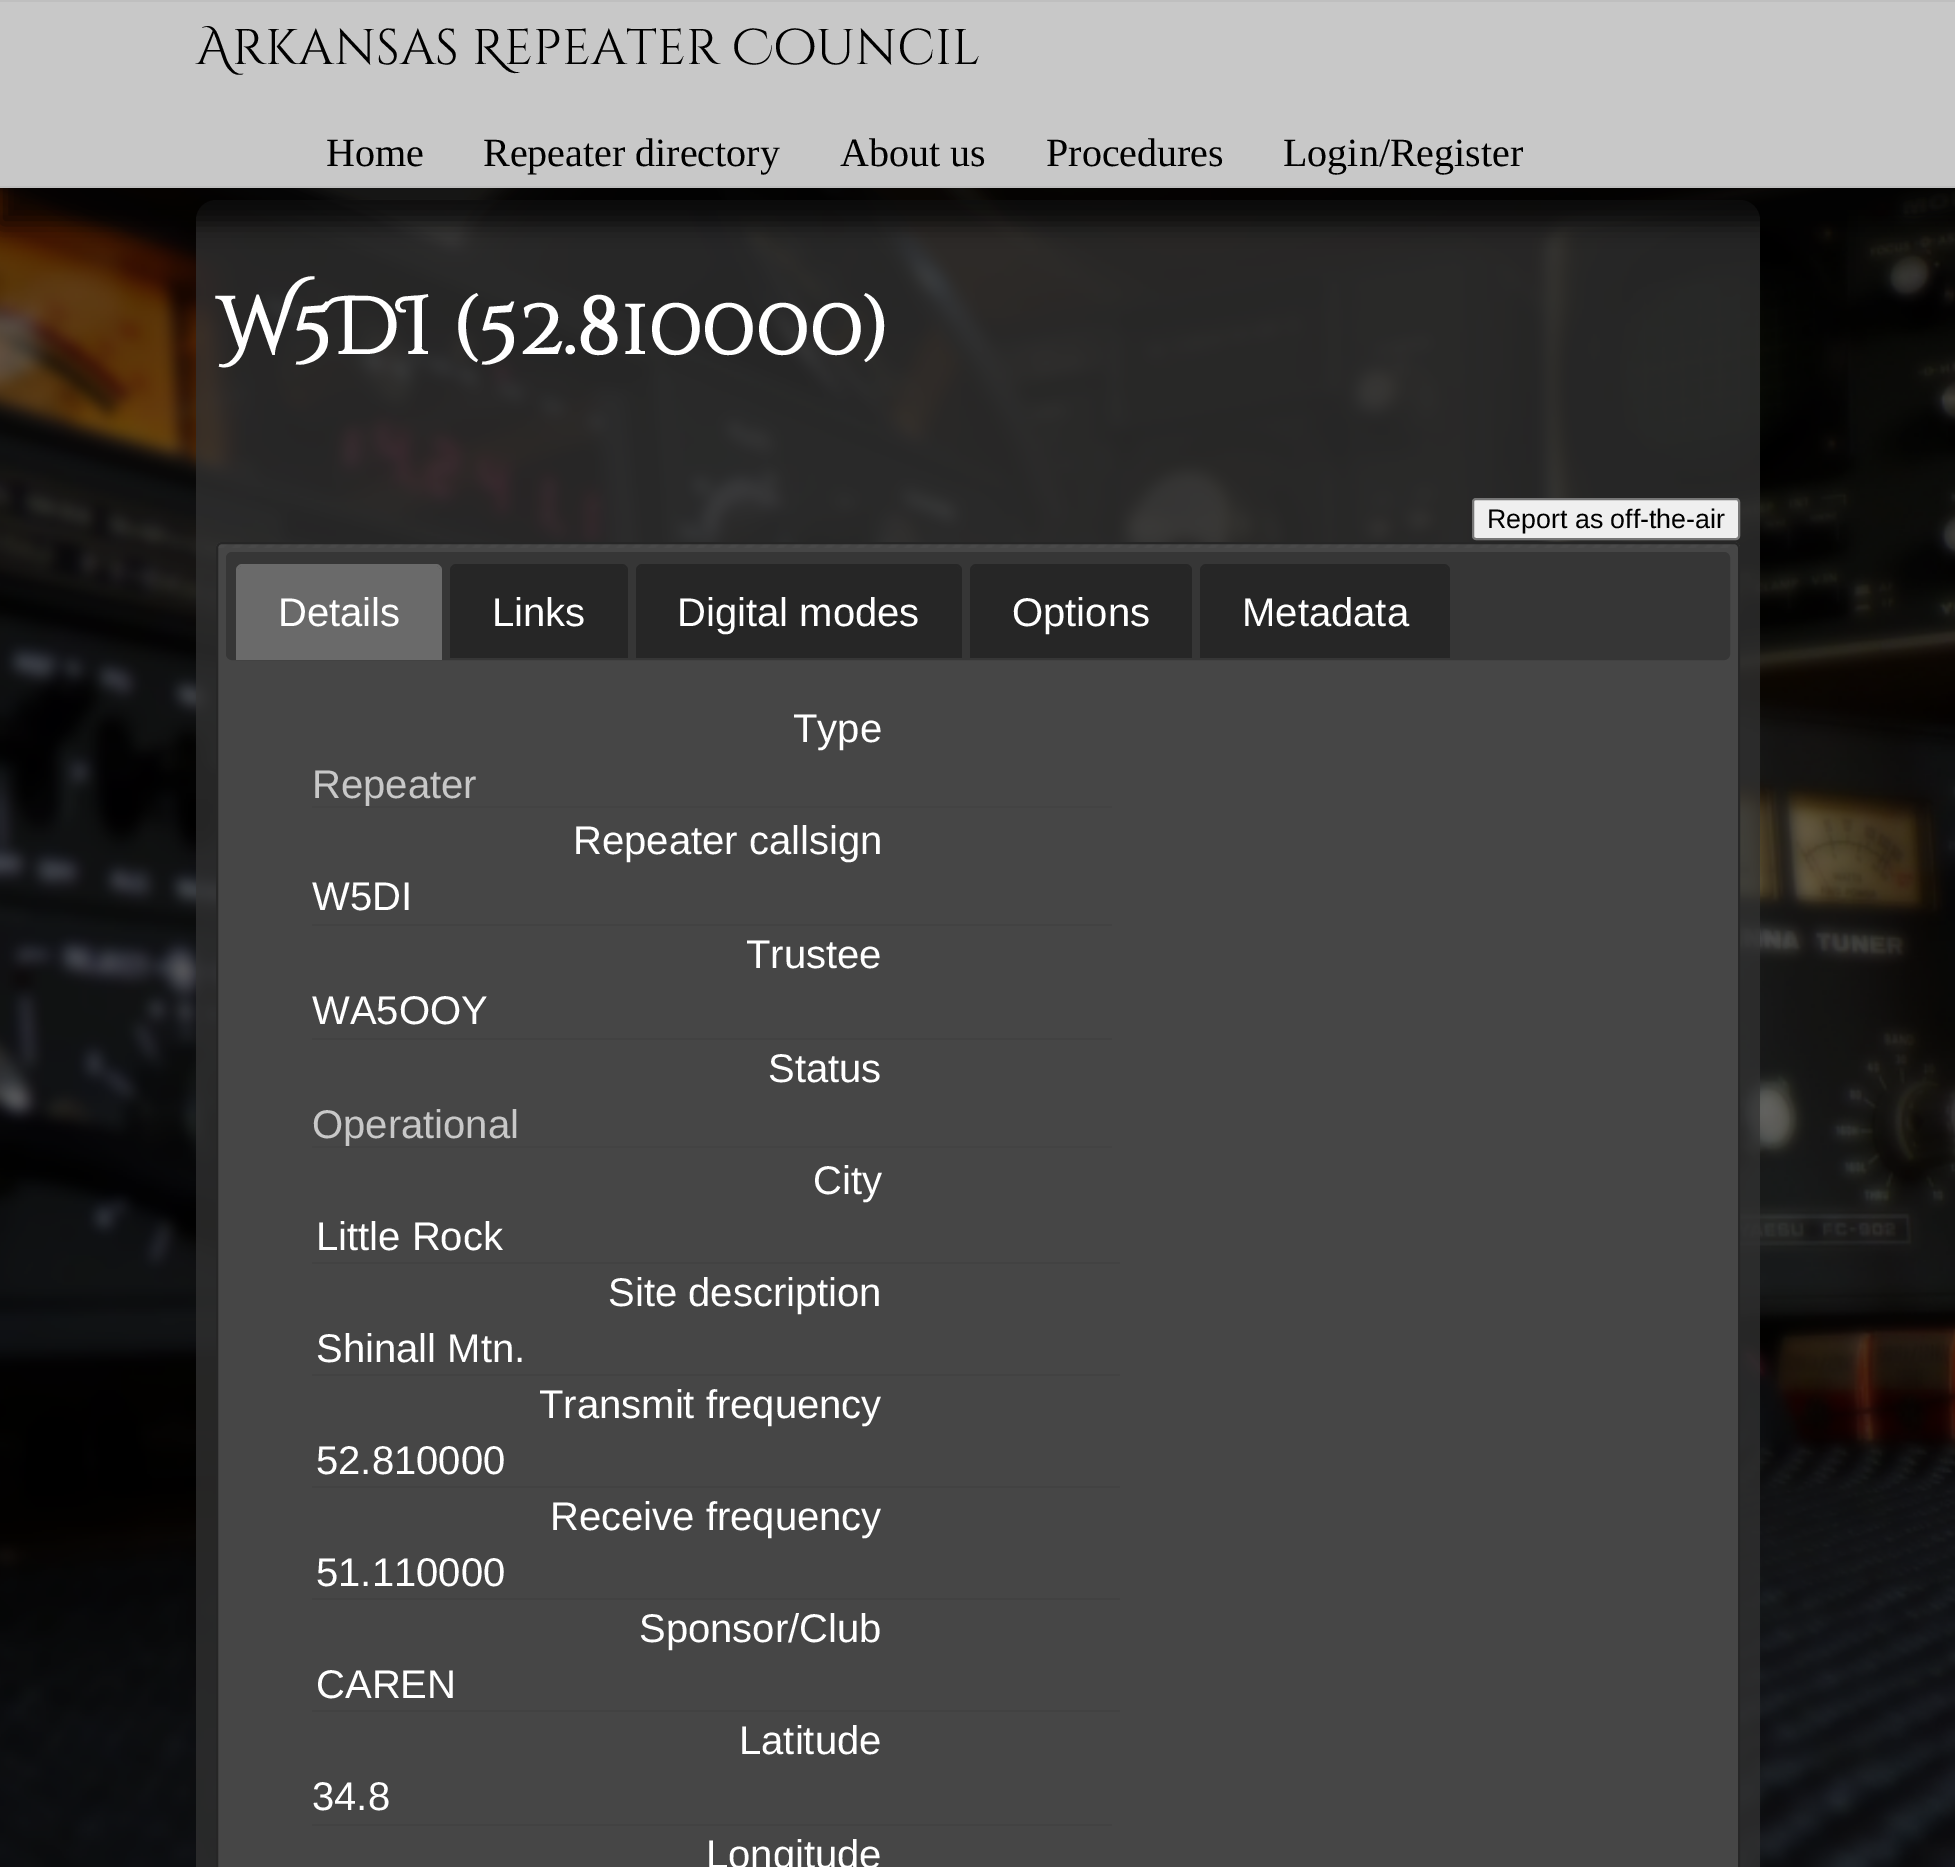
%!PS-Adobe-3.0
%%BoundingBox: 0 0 1955 1867
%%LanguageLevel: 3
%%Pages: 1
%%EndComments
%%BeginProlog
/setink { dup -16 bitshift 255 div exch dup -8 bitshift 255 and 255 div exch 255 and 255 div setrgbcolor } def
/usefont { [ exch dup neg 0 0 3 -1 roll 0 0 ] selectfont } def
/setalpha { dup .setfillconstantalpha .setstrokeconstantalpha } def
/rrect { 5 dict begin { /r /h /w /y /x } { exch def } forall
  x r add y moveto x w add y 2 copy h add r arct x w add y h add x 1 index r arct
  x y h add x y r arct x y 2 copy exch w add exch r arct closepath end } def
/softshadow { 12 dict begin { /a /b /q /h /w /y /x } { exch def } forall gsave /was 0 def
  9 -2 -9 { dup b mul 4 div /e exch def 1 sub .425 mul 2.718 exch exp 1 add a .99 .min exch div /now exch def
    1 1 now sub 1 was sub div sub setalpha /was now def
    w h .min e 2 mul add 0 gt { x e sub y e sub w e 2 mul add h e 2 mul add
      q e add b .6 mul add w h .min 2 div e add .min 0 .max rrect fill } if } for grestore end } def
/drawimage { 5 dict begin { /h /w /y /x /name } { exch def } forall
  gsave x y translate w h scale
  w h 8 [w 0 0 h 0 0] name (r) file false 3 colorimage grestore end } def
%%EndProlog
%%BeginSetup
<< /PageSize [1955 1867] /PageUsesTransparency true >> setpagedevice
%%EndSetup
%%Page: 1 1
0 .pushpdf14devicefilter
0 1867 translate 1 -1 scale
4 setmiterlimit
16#FFFFFF setink
0 0 1955 1867 rectfill
(img1.raw) 0 188 1955 1679 drawimage
0.75 setalpha
16#323232 setink
196 200 1564 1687 20 rrect fill
1 setalpha
16#000000 setink
0 36 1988 188 0 11 0.75 softshadow
[
    [0 2 1955 184 16#C8C8C8]
    [0 0 1955 2 16#BFBFBF]
    [0 186 1955 2 16#BFBFBF]
] { aload pop setink rectfill } forall
/CinzelDecorative-Regular 50 usefont
16#000000 setink
196 64 moveto (Arkansas Repeater Council) show
/LiberationSerif-Regular 40 usefont
[
    [(Home) 326 166]
    [(Repeater directory) 483 166]
    [(About us) 840 166]
    [(Procedures) 1046 166]
    [(Login/Register) 1283 166]
] { aload pop moveto show } forall
/CinzelDecorative-Bold 80 usefont
16#FFFFFF setink
216 354 moveto (W5DI \(52.810000\)) show
16#EFEFEF setink
1473 499 266 40 3 rrect gsave fill grestore
16#767676 setink
2 setlinewidth
stroke
/LiberationSans-Regular 26.75 usefont
16#000000 setink
1487 528 moveto (Report as off-the-air) show
16#464646 setink
216 542 1524 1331 6 rrect fill
(img2.raw) 216 542 1524 6 drawimage
16#262626 setink
217 543 1522 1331 5 rrect stroke
16#363636 setink
227 553 1502 106 5 rrect gsave fill grestore
stroke
16#6A6A6A setink
242 566 moveto 436 566 lineto 438 566 440 568 440 570 curveto 440 660 lineto 238 660 lineto 238 570 lineto 238 568 240 566 242 566 curveto closepath fill
242 564 moveto 436 564 lineto 439 564 442 567 442 570 curveto 442 660 lineto 236 660 lineto 236 570 lineto 236 567 239 564 242 564 curveto closepath 242 566 moveto 436 566 lineto 438 566 440 568 440 570 curveto 440 660 lineto 238 660 lineto 238 570 lineto 238 568 240 566 242 566 curveto closepath eofill
/LiberationSans-Regular 40 usefont
16#FFFFFF setink
278 626 moveto (Details) show
16#262626 setink
456 566 moveto 622 566 lineto 624 566 626 568 626 570 curveto 626 658 lineto 452 658 lineto 452 570 lineto 452 568 454 566 456 566 curveto closepath fill
456 564 moveto 622 564 lineto 625 564 628 567 628 570 curveto 628 658 lineto 450 658 lineto 450 570 lineto 450 567 453 564 456 564 curveto closepath 456 566 moveto 622 566 lineto 624 566 626 568 626 570 curveto 626 658 lineto 452 658 lineto 452 570 lineto 452 568 454 566 456 566 curveto closepath eofill
16#FFFFFF setink
492 626 moveto (Links) show
16#262626 setink
642 566 moveto 956 566 lineto 958 566 960 568 960 570 curveto 960 658 lineto 638 658 lineto 638 570 lineto 638 568 640 566 642 566 curveto closepath fill
642 564 moveto 956 564 lineto 959 564 962 567 962 570 curveto 962 658 lineto 636 658 lineto 636 570 lineto 636 567 639 564 642 564 curveto closepath 642 566 moveto 956 566 lineto 958 566 960 568 960 570 curveto 960 658 lineto 638 658 lineto 638 570 lineto 638 568 640 566 642 566 curveto closepath eofill
16#FFFFFF setink
677 626 moveto (Digital modes) show
16#262626 setink
976 566 moveto 1186 566 lineto 1188 566 1190 568 1190 570 curveto 1190 658 lineto 972 658 lineto 972 570 lineto 972 568 974 566 976 566 curveto closepath fill
976 564 moveto 1186 564 lineto 1189 564 1192 567 1192 570 curveto 1192 658 lineto 970 658 lineto 970 570 lineto 970 567 973 564 976 564 curveto closepath 976 566 moveto 1186 566 lineto 1188 566 1190 568 1190 570 curveto 1190 658 lineto 972 658 lineto 972 570 lineto 972 568 974 566 976 566 curveto closepath eofill
16#FFFFFF setink
1012 626 moveto (Options) show
16#262626 setink
1206 566 moveto 1444 566 lineto 1446 566 1448 568 1448 570 curveto 1448 658 lineto 1202 658 lineto 1202 570 lineto 1202 568 1204 566 1206 566 curveto closepath fill
1206 564 moveto 1444 564 lineto 1447 564 1450 567 1450 570 curveto 1450 658 lineto 1200 658 lineto 1200 570 lineto 1200 567 1203 564 1206 564 curveto closepath 1206 566 moveto 1444 566 lineto 1446 566 1448 568 1448 570 curveto 1448 658 lineto 1202 658 lineto 1202 570 lineto 1202 568 1204 566 1206 566 curveto closepath eofill
16#FFFFFF setink
1242 626 moveto (Metadata) show
793 742 moveto (Type) show
16#434343 setink
312 806 800 2 rectfill
gsave
312 762 800 44 rectclip
16#C8C8C8 setink
312 798 moveto (Repeater) show
grestore
16#FFFFFF setink
573 854 moveto (Repeater callsign) show
16#424242 setink
312 924 800 2 rectfill
16#FFFFFF setink
312 910 moveto (W5DI) show
746 968 moveto (Trustee) show
16#424242 setink
312 1038 800 2 rectfill
16#FFFFFF setink
312 1024 moveto (WA5OOY) show
768 1082 moveto (Status) show
16#434343 setink
312 1146 800 2 rectfill
gsave
312 1102 800 44 rectclip
16#C8C8C8 setink
312 1138 moveto (Operational) show
grestore
16#FFFFFF setink
813 1194 moveto (City) show
16#424242 setink
312 1262 808 2 rectfill
16#FFFFFF setink
316 1250 moveto (Little Rock) show
608 1306 moveto (Site description) show
16#424242 setink
312 1374 808 2 rectfill
16#FFFFFF setink
316 1362 moveto (Shinall Mtn.) show
539 1418 moveto (Transmit frequency) show
16#424242 setink
312 1486 808 2 rectfill
16#FFFFFF setink
316 1474 moveto (52.810000) show
550 1530 moveto (Receive frequency) show
16#424242 setink
312 1598 808 2 rectfill
16#FFFFFF setink
316 1586 moveto (51.110000) show
639 1642 moveto (Sponsor/Club) show
16#424242 setink
312 1710 808 2 rectfill
16#FFFFFF setink
316 1698 moveto (CAREN) show
739 1754 moveto (Latitude) show
16#424242 setink
312 1824 800 2 rectfill
16#FFFFFF setink
312 1810 moveto (34.8) show
706 1868 moveto (Longitude) show
.poppdf14devicefilter showpage
%%EOF
